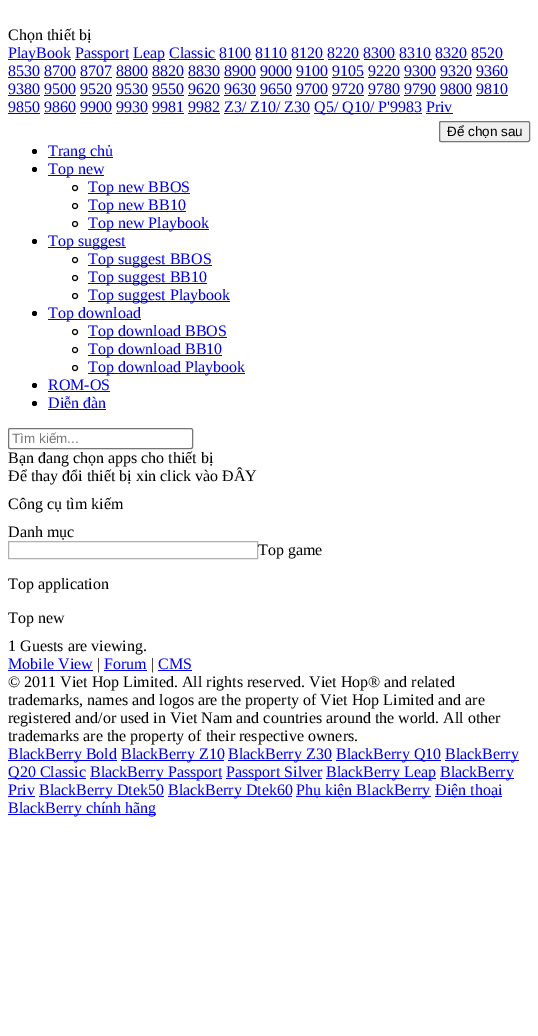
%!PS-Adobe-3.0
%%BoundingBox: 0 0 538 1036
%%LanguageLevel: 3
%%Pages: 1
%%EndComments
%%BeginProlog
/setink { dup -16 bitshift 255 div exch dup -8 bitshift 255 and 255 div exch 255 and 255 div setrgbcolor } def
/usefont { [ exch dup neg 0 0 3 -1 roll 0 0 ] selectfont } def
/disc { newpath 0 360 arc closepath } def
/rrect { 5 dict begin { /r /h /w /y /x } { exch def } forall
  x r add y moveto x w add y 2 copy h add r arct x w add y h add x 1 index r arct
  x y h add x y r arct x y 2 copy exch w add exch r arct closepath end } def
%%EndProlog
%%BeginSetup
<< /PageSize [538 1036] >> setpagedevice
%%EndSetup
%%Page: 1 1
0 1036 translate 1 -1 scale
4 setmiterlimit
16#FFFFFF setink
0 0 538 1036 rectfill
/LiberationSerif-Regular 16 usefont
16#000000 setink
8 40 moveto (Chọn thiết bị) show
16#0000EE setink
8 59 63 1 rectfill
8 58 moveto (PlayBook) show
75 59 54 1 rectfill
75 58 moveto (Passport) show
133 59 32 1 rectfill
133 58 moveto (Leap Classic 8100 8110 8120 8220 8300 8310 8320 8520) show
[
    [169 59 47 1 16#0000EE]
    [220 59 32 1 16#0000EE]
    [256 59 32 1 16#0000EE]
    [292 59 32 1 16#0000EE]
    [328 59 32 1 16#0000EE]
    [364 59 32 1 16#0000EE]
    [400 59 32 1 16#0000EE]
    [436 59 32 1 16#0000EE]
    [472 59 32 1 16#0000EE]
] { aload pop setink rectfill } forall
8 76 moveto (8530 8700 8707 8800 8820 8830 8900 9000 9100 9105 9220 9300 9320 9360) show
[
    [8 77 32 1 16#0000EE]
    [44 77 32 1 16#0000EE]
    [80 77 32 1 16#0000EE]
    [116 77 32 1 16#0000EE]
    [152 77 32 1 16#0000EE]
    [188 77 32 1 16#0000EE]
    [224 77 32 1 16#0000EE]
    [260 77 32 1 16#0000EE]
    [296 77 32 1 16#0000EE]
    [332 77 32 1 16#0000EE]
    [368 77 32 1 16#0000EE]
    [404 77 32 1 16#0000EE]
    [440 77 32 1 16#0000EE]
    [476 77 32 1 16#0000EE]
] { aload pop setink rectfill } forall
8 94 moveto (9380 9500 9520 9530 9550 9620 9630 9650 9700 9720 9780 9790 9800 9810) show
[
    [8 95 32 1 16#0000EE]
    [44 95 32 1 16#0000EE]
    [80 95 32 1 16#0000EE]
    [116 95 32 1 16#0000EE]
    [152 95 32 1 16#0000EE]
    [188 95 32 1 16#0000EE]
    [224 95 32 1 16#0000EE]
    [260 95 32 1 16#0000EE]
    [296 95 32 1 16#0000EE]
    [332 95 32 1 16#0000EE]
    [368 95 32 1 16#0000EE]
    [404 95 32 1 16#0000EE]
    [440 95 32 1 16#0000EE]
    [476 95 32 1 16#0000EE]
] { aload pop setink rectfill } forall
8 112 moveto (9850 9860 9900 9930 9981 9982 Z3/ Z10/ Z30) show
8 113 32 1 rectfill
314 113 108 1 rectfill
314 112 moveto (Q5/ Q10/ P'9983 Priv) show
[
    [44 113 32 1 16#0000EE]
    [80 113 32 1 16#0000EE]
    [116 113 32 1 16#0000EE]
    [152 113 32 1 16#0000EE]
    [188 113 32 1 16#0000EE]
    [224 113 86 1 16#0000EE]
    [426 113 27 1 16#0000EE]
] { aload pop setink rectfill } forall
16#EFEFEF setink
439.5 121.5 90 20 1.5 rrect gsave fill grestore
16#767676 setink
stroke
/LiberationSans-Regular 13.5 usefont
16#000000 setink
447 136 moveto (Để chọn sau) show
34.5 151.5 2.5 disc fill
16#0000EE setink
48 157 65 1 rectfill
/LiberationSerif-Regular 16 usefont
48 156 moveto (Trang chủ) show
16#000000 setink
34.5 169.5 2.5 disc fill
16#0000EE setink
48 175 56 1 rectfill
48 174 moveto (Top new) show
16#000000 setink
75 188 2.5 disc stroke
16#0000EE setink
88 193 102 1 rectfill
88 192 moveto (Top new BBOS) show
16#000000 setink
75 206 2.5 disc stroke
16#0000EE setink
88 211 98 1 rectfill
88 210 moveto (Top new BB10) show
16#000000 setink
75 224 2.5 disc stroke
16#0000EE setink
88 229 121 1 rectfill
88 228 moveto (Top new Playbook) show
16#000000 setink
34.5 241.5 2.5 disc fill
16#0000EE setink
48 247 78 1 rectfill
48 246 moveto (Top suggest) show
16#000000 setink
75 260 2.5 disc stroke
16#0000EE setink
88 265 124 1 rectfill
88 264 moveto (Top suggest BBOS) show
16#000000 setink
75 278 2.5 disc stroke
16#0000EE setink
88 283 119 1 rectfill
88 282 moveto (Top suggest BB10) show
16#000000 setink
75 296 2.5 disc stroke
16#0000EE setink
88 301 142 1 rectfill
88 300 moveto (Top suggest Playbook) show
16#000000 setink
34.5 313.5 2.5 disc fill
16#0000EE setink
48 319 93 1 rectfill
48 318 moveto (Top download) show
16#000000 setink
75 332 2.5 disc stroke
16#0000EE setink
88 337 139 1 rectfill
88 336 moveto (Top download BBOS) show
16#000000 setink
75 350 2.5 disc stroke
16#0000EE setink
88 355 134 1 rectfill
88 354 moveto (Top download BB10) show
16#000000 setink
75 368 2.5 disc stroke
16#0000EE setink
88 373 157 1 rectfill
88 372 moveto (Top download Playbook) show
16#000000 setink
34.5 385.5 2.5 disc fill
16#0000EE setink
48 390 moveto (ROM-OS) show
48 391 62 1 rectfill
16#000000 setink
34.5 403.5 2.5 disc fill
16#0000EE setink
48 408 moveto (Diễn đàn) show
48 409 58 1 rectfill
16#767676 setink
8.5 428.5 184 20 1.5 rrect stroke
/LiberationSans-Regular 13.5 usefont
16#757575 setink
12 443 moveto (Tìm kiếm...) show
/LiberationSerif-Regular 16 usefont
16#000000 setink
[
    [(Bạn đang chọn apps cho thiết bị) 8 463]
    [(Để thay đổi thiết bị xin click vào ĐÂY) 8 481]
    [(Công cụ tìm kiếm) 8 509]
    [(Danh mục) 8 537]
] { aload pop moveto show } forall
16#B0B0B0 setink
8.5 541.5 249 17 rectstroke
16#000000 setink
[
    [(Top game) 258 555]
    [(Top application) 8 589]
    [(Top new) 8 623]
    [(1 Guests are viewing.) 8 651]
] { aload pop moveto show } forall
16#0000EE setink
8 669 moveto (Mobile View) show
8 670 85 1 rectfill
16#000000 setink
97 669 moveto (|) show
16#0000EE setink
104 669 moveto (Forum) show
104 670 43 1 rectfill
16#000000 setink
151 669 moveto (|) show
16#0000EE setink
158 669 moveto (CMS) show
158 670 34 1 rectfill
16#000000 setink
[
    [(© 2011 Viet Hop Limited. All rights reserved. Viet Hop® and related) 8 687]
    [(trademarks, names and logos are the property of Viet Hop Limited and are) 8 705]
    [(registered and/or used in Viet Nam and countries around the world. All other) 8 723]
    [(trademarks are the property of their respective owners.) 8 741]
] { aload pop moveto show } forall
16#0000EE setink
8 760 109 1 rectfill
8 759 moveto (BlackBerry Bold) show
121 760 103 1 rectfill
121 759 moveto (BlackBerry Z10) show
228 760 104 1 rectfill
228 759 moveto (BlackBerry Z30) show
336 760 105 1 rectfill
336 759 moveto (BlackBerry Q10) show
445 760 74 1 rectfill
445 759 moveto (BlackBerry) show
8 778 78 1 rectfill
8 777 moveto (Q20 Classic) show
90 778 132 1 rectfill
90 777 moveto (BlackBerry Passport) show
226 778 96 1 rectfill
226 777 moveto (Passport Silver) show
326 778 110 1 rectfill
326 777 moveto (BlackBerry Leap) show
440 778 74 1 rectfill
440 777 moveto (BlackBerry) show
8 795 moveto (Priv) show
8 796 27 1 rectfill
39 796 125 1 rectfill
39 795 moveto (BlackBerry Dtek50) show
168 796 124 1 rectfill
168 795 moveto (BlackBerry Dtek60) show
296 796 135 1 rectfill
296 795 moveto (Phụ kiện BlackBerry) show
435 796 67 1 rectfill
435 795 moveto (Điện thoại) show
8 814 148 1 rectfill
8 813 moveto (BlackBerry chính hãng) show
showpage
%%EOF
